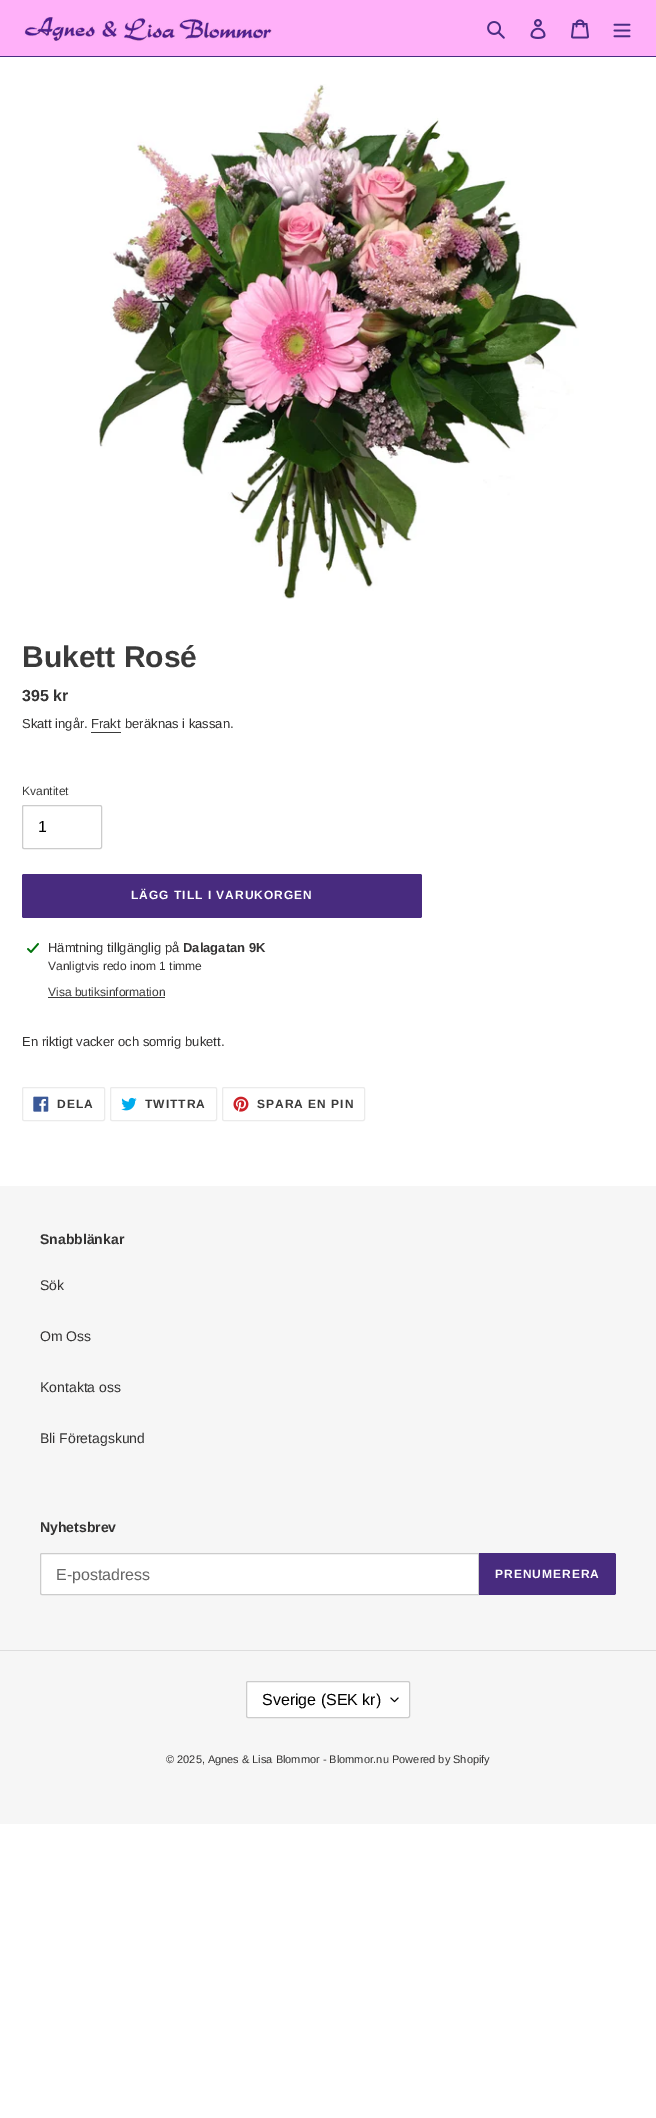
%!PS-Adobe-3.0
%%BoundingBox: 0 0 656 2118
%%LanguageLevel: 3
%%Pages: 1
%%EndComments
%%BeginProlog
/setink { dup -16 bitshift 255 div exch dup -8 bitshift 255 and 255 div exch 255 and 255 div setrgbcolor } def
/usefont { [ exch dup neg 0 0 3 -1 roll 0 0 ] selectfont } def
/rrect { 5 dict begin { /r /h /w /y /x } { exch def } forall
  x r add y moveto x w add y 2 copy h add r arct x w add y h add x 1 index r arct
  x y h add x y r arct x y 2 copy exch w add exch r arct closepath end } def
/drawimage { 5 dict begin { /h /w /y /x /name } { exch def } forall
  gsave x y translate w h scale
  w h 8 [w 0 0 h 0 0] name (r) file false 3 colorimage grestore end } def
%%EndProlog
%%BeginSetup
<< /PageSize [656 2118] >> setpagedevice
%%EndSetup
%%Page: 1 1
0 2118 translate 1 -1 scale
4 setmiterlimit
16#FFFFFF setink
0 0 656 2118 rectfill
16#FFB0F9 setink
0 0 656 56 rectfill
16#4A2C83 setink
0 56 656 1 rectfill
(img1.raw) 24 17 248 24 drawimage
(img2.raw) 487 21 18 18 drawimage
(img3.raw) 530 19 16 20 drawimage
(img4.raw) 571 19 18 20 drawimage
(img5.raw) 613 23 18 15 drawimage
(img6.raw) 99 84 480 515 drawimage
/LiberationSans-Bold 30 usefont
16#3A3A3A setink
22 667 moveto (Bukett Rosé) show
/LiberationSans-Bold 16 usefont
16#333232 setink
22 701 moveto (395 kr) show
/LiberationSans-Regular 13 usefont
22 728 moveto (Skatt ingår.) show
16#3A3A3A setink
91 728 moveto (Frakt) show
91 732 30 1 rectfill
16#333232 setink
125 728 moveto (beräknas i kassan.) show
/LiberationSans-Regular 12 usefont
16#3A3A3A setink
22 795 moveto (Kvantitet) show
16#CCCCCC setink
22.5 805.5 79 43 1.5 rrect stroke
/LiberationSans-Regular 16 usefont
16#000000 setink
38 832 moveto (1) show
16#482B7F setink
22 874 400 44 2 rrect fill
/LiberationSans-Bold 12 usefont
16#FFFFFF setink
131 899 moveto 1 0 (LÄGG TILL I VARUKORGEN) ashow
(img7.raw) 27 943 12 10 drawimage
/LiberationSans-Regular 13 usefont
16#333232 setink
48 952 moveto (Hämtning tillgänglig på) show
/LiberationSans-Bold 13 usefont
183 952 moveto (Dalagatan 9K) show
/LiberationSans-Regular 12 usefont
48 970 moveto (Vanligtvis redo inom 1 timme) show
16#3A3A3A setink
48 996 moveto (Visa butiksinformation) show
48 997 117 1 rectfill
/LiberationSans-Regular 13 usefont
16#333232 setink
22 1046 moveto (En riktigt vacker och somrig bukett.) show
16#EBEBEB setink
22.5 1087.5 82 33 1.5 rrect stroke
(img8.raw) 33 1096 16 16 drawimage
/LiberationSans-Bold 12 usefont
16#3A3A3A setink
57 1108 moveto 1 0 (DELA) ashow
16#EBEBEB setink
110.5 1087.5 106 33 1.5 rrect stroke
(img9.raw) 121 1097 16 14 drawimage
16#3A3A3A setink
145 1108 moveto 1 0 (TWITTRA) ashow
16#EBEBEB setink
222.5 1087.5 142 33 1.5 rrect stroke
(img10.raw) 233 1096 16 16 drawimage
16#3A3A3A setink
257 1108 moveto 1 0 (SPARA EN PIN) ashow
16#F6F6F6 setink
0 1186 656 638 rectfill
/LiberationSans-Bold 14 usefont
16#333232 setink
40 1244 moveto (Snabblänkar) show
/LiberationSans-Regular 14 usefont
[
    [(Sök) 40 1290]
    [(Om Oss) 40 1341]
    [(Kontakta oss) 40 1392]
    [(Bli Företagskund) 40 1443]
] { aload pop moveto show } forall
/LiberationSans-Bold 14 usefont
40 1532 moveto (Nyhetsbrev) show
16#FFFFFF setink
42 1553.5 moveto 478.5 1553.5 lineto 478.5 1594.5 lineto 42 1594.5 lineto 41 1594.5 40.5 1594 40.5 1593 curveto 40.5 1555 lineto 40.5 1554 41 1553.5 42 1553.5 curveto closepath gsave fill grestore
16#CCCCCC setink
stroke
/LiberationSans-Regular 16 usefont
16#666666 setink
56 1580 moveto (E-postadress) show
16#482B7F setink
479 1553 moveto 614 1553 lineto 615 1553 616 1554 616 1555 curveto 616 1593 lineto 616 1594 615 1595 614 1595 curveto 479 1595 lineto closepath fill
/LiberationSans-Bold 12 usefont
16#FFFFFF setink
495 1578 moveto 1 0 (PRENUMERERA) ashow
16#DDDDDD setink
0 1650 656 1 rectfill
16#FFFFFF setink
246 1681 164 37 2 rrect fill
(img11.raw) 390 1697 9 6 drawimage
16#CCCCCC setink
246.5 1681.5 163 36 1.5 rrect stroke
/LiberationSans-Regular 16 usefont
16#000000 setink
262 1705 moveto (Sverige \(SEK kr\)) show
/LiberationSans-Regular 11 usefont
16#333232 setink
166 1763 moveto (© 2025, Agnes & Lisa Blommor - Blommor.nu) show
392 1763 moveto (Powered by Shopify) show
showpage
%%EOF
